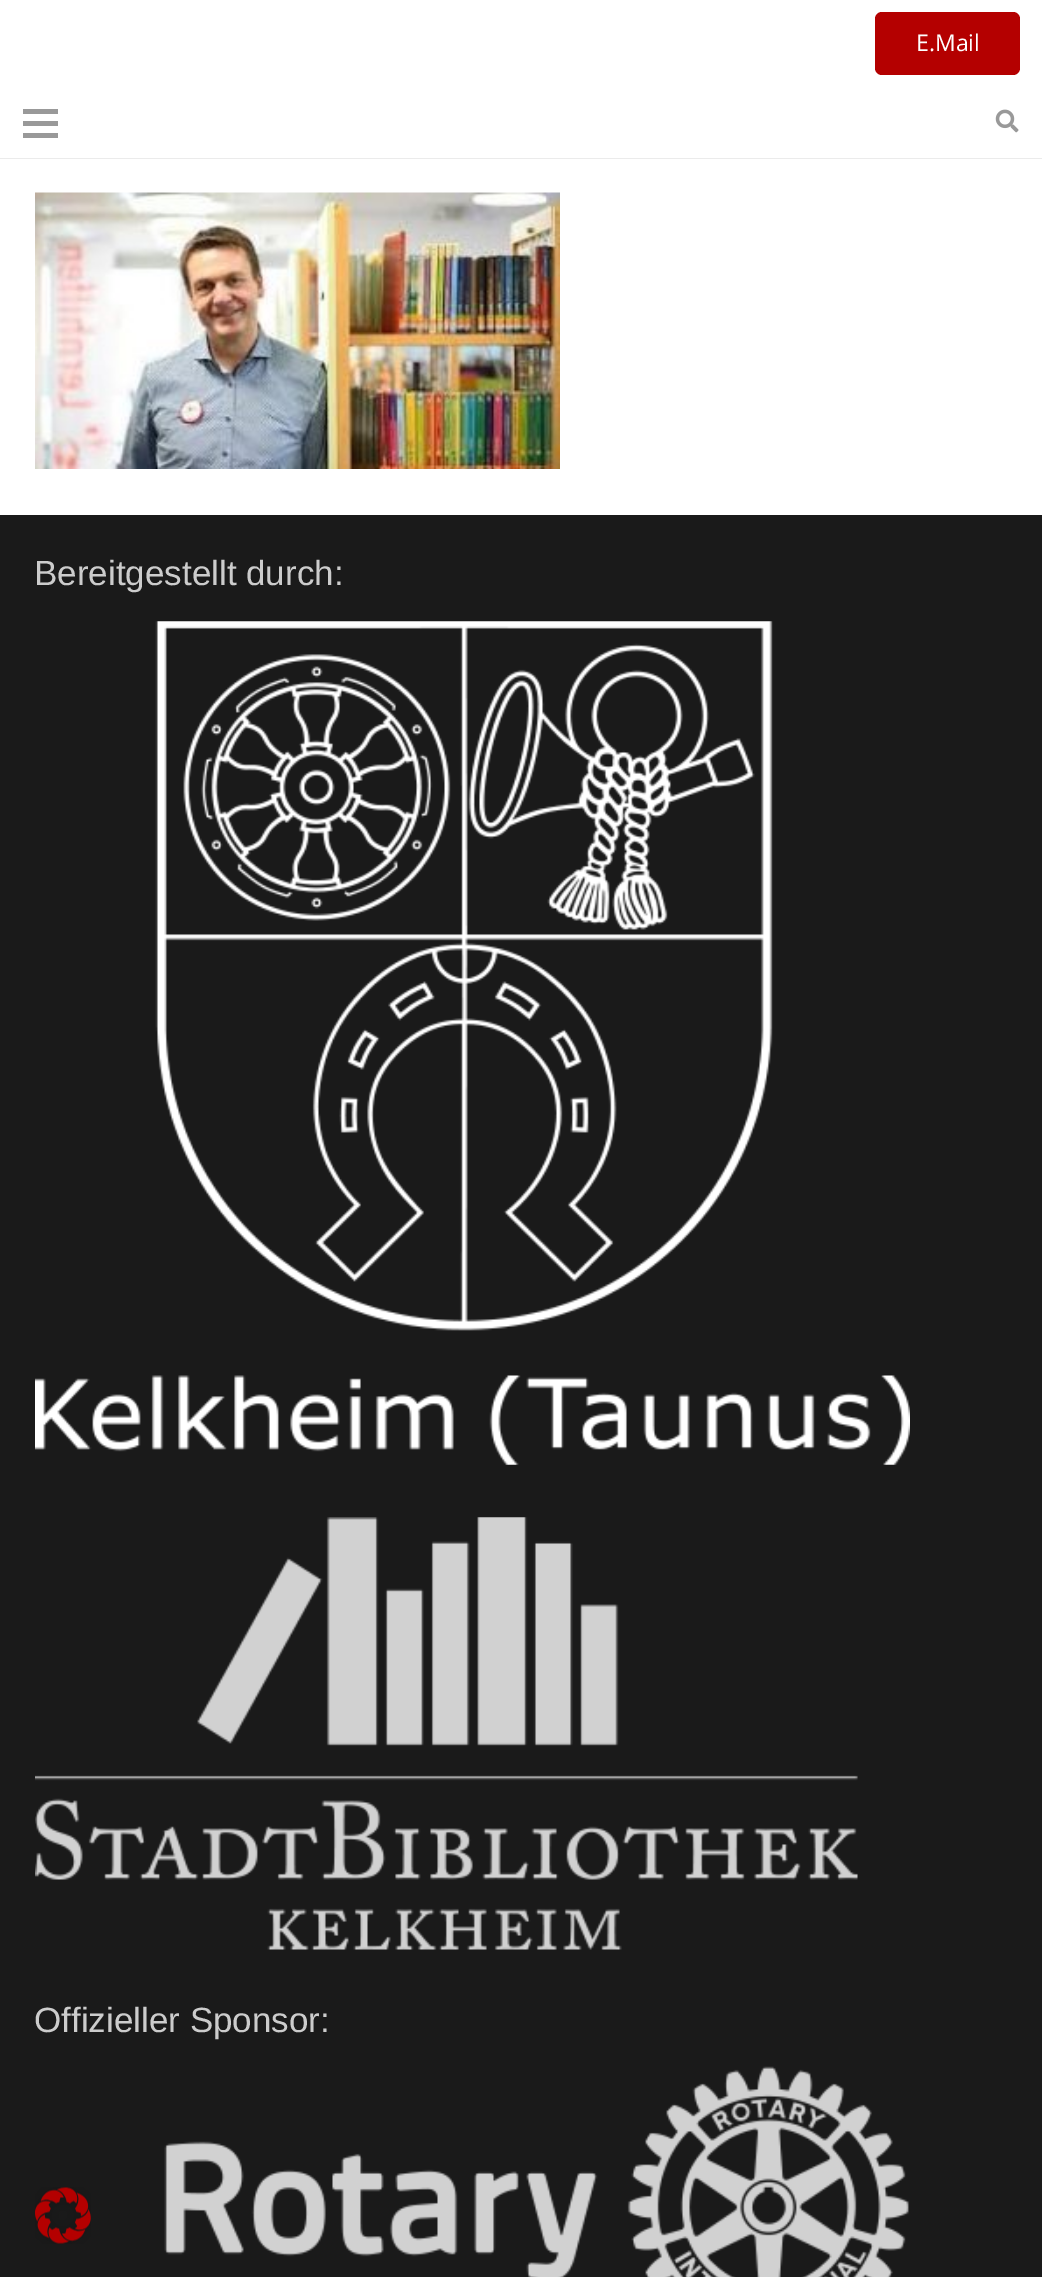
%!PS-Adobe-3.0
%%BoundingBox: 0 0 1042 2277
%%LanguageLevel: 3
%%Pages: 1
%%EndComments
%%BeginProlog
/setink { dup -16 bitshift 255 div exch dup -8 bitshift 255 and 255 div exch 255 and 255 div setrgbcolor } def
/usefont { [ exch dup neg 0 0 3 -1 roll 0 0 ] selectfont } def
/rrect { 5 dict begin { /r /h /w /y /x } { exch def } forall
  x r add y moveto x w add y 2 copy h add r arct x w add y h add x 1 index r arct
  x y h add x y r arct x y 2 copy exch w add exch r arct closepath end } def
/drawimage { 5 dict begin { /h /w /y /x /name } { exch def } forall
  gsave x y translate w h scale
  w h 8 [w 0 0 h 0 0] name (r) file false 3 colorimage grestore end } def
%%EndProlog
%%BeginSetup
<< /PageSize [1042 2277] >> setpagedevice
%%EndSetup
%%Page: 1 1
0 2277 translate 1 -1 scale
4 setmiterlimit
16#FFFFFF setink
0 0 1042 2277 rectfill
16#B40000 setink
875 12 145 63 7 rrect fill
/OpenSans-Regular 23 usefont
16#FFFFFF setink
916 51 moveto (E.Mail) show
[
    [0 158 1042 1 16#EBEBEB]
    [23 121 35 5 16#999999]
    [23 109 35 5 16#999999]
    [23 133 35 5 16#999999]
] { aload pop setink rectfill } forall
(img1.raw) 995 109 24 24 drawimage
(img2.raw) 35 192 525 277 drawimage
16#1A1A1A setink
0 515 1042 1762 rectfill
/LiberationSans-Regular 35 usefont
16#CCCCCC setink
34 585 moveto (Bereitgestellt durch:) show
(img3.raw) 35 621 875 844 drawimage
(img4.raw) 35 1517 823 433 drawimage
34 2032 moveto (Offizieller Sponsor:) show
(img5.raw) 164 2066 745 211 drawimage
(img6.raw) 35 2187 56 57 drawimage
showpage
%%EOF
